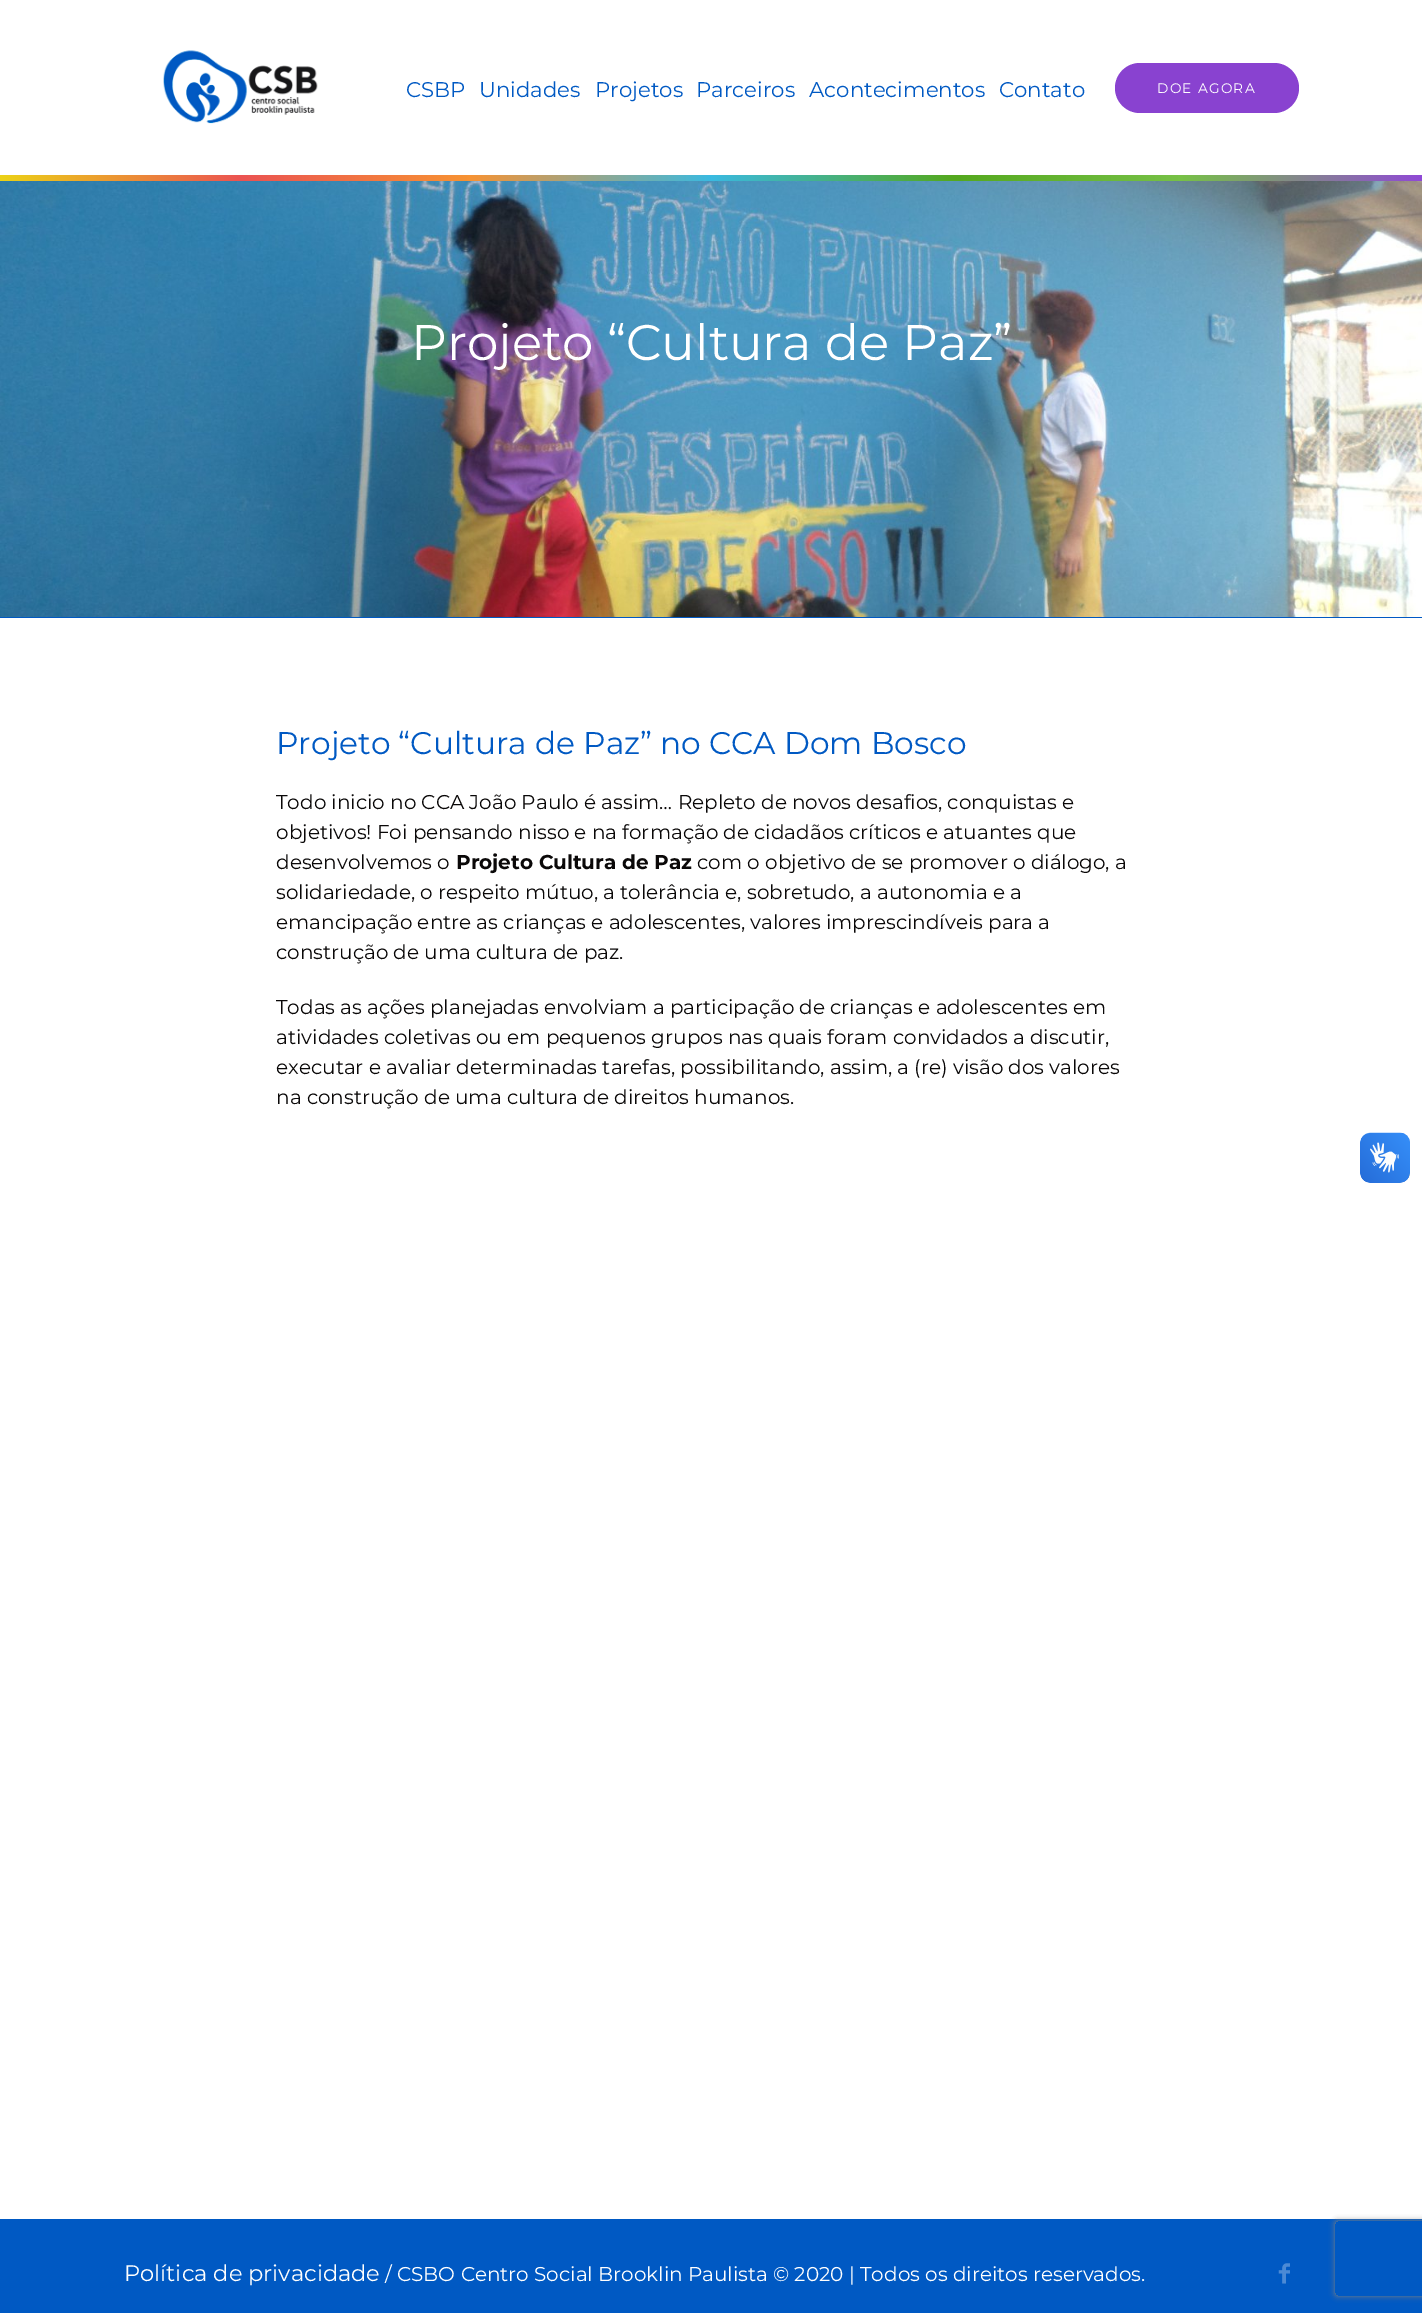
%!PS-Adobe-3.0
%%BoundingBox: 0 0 1422 2313
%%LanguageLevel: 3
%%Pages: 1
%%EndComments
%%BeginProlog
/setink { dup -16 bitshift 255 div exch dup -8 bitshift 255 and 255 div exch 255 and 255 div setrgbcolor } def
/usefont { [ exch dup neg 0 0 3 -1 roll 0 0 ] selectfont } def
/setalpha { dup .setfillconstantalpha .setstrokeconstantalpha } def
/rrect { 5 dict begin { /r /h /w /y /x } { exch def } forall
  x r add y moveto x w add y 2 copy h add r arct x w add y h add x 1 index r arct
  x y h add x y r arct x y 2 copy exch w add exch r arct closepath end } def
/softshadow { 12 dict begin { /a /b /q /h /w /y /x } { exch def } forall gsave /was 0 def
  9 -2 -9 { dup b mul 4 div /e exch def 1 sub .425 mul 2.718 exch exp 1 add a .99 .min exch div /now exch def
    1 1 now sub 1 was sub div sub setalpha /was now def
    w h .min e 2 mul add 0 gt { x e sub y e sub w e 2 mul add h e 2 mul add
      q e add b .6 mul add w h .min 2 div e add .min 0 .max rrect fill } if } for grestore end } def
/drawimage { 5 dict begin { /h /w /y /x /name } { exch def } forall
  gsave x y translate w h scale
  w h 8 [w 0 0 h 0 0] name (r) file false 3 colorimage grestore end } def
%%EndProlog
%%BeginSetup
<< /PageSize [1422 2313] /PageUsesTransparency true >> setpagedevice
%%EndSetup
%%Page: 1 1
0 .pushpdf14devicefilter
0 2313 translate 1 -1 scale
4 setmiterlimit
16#FFFFFF setink
0 0 1422 2313 rectfill
(img1.raw) 163 50 155 74 drawimage
/Montserrat-Regular 21.25 usefont
16#0059C3 setink
[
    [(CSBP) 406 97]
    [(Unidades) 479 97]
    [(Projetos) 595 97]
    [(Parceiros) 696 97]
    [(Acontecimentos) 809 97]
    [(Contato) 999 97]
] { aload pop moveto show } forall
16#8942D0 setink
1115 63 184 50 25 rrect fill
/Montserrat-Regular 13.75 usefont
16#FFFFFF setink
1157 93 moveto 1.25 0 (DOE AGORA) ashow
gsave 0 175 moveto 1422 175 lineto 1422 181 lineto 0 181 lineto closepath clip newpath
<< /ShadingType 2 /ColorSpace /DeviceRGB /Coords [0 178 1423 178] /Extend [true true] /Function << /FunctionType 3 /Domain [0 1] /Functions [<< /FunctionType 2 /Domain [0 1] /C0 [0.922 0.824 0.086] /C1 [0.922 0.325 0.322] /N 1 >> << /FunctionType 2 /Domain [0 1] /C0 [0.922 0.325 0.322] /C1 [0.969 0.576 0.2] /N 1 >> << /FunctionType 2 /Domain [0 1] /C0 [0.969 0.576 0.2] /C1 [0.227 0.729 0.882] /N 1 >> << /FunctionType 2 /Domain [0 1] /C0 [0.227 0.729 0.882] /C1 [0.329 0.659 0.118] /N 1 >> << /FunctionType 2 /Domain [0 1] /C0 [0.329 0.659 0.118] /C1 [0.467 0.757 0.275] /N 1 >> << /FunctionType 2 /Domain [0 1] /C0 [0.467 0.757 0.275] /C1 [0.565 0.286 0.843] /N 1 >>] /Bounds [0.17 0.33 0.5 0.67 0.83] /Encode [0 1 0 1 0 1 0 1 0 1 0 1] >> >> shfill grestore
16#0059C3 setink
0 617 1422 1 rectfill
(img2.raw) 0 181 1422 436 drawimage
/Montserrat-Regular 50 usefont
16#FFFFFF setink
411 360 moveto (Projeto “Cultura de Paz”) show
/Montserrat-Regular 31.25 usefont
16#0059C3 setink
276 754 moveto (Projeto “Cultura de Paz” no CCA Dom Bosco) show
/Montserrat-Regular 20 usefont
16#0A0808 setink
[
    [(Todo inicio no CCA João Paulo é assim… Repleto de novos desafios, conquistas e) 276 809]
    [(objetivos! Foi pensando nisso e na formação de cidadãos críticos e atuantes que) 276 839]
    [(desenvolvemos o) 276 869]
] { aload pop moveto show } forall
/Montserrat-Bold 20 usefont
456 869 moveto (Projeto Cultura de Paz) show
/Montserrat-Regular 20 usefont
[
    [(com o objetivo de se promover o diálogo, a) 697 869]
    [(solidariedade, o respeito mútuo, a tolerância e, sobretudo, a autonomia e a) 276 899]
    [(emancipação entre as crianças e adolescentes, valores imprescindíveis para a) 276 929]
    [(construção de uma cultura de paz.) 276 959]
    [(Todas as ações planejadas envolviam a participação de crianças e adolescentes em) 276 1014]
    [(atividades coletivas ou em pequenos grupos nas quais foram convidados a discutir,) 276 1044]
    [(executar e avaliar determinadas tarefas, possibilitando, assim, a \(re\) visão dos valores) 276 1074]
    [(na construção de uma cultura de direitos humanos.) 276 1104]
] { aload pop moveto show } forall
16#0059C3 setink
0 2219 1422 94 rectfill
/Montserrat-Regular 22.5 usefont
16#FFFFFF setink
124 2281 moveto (Política de privacidade) show
/Montserrat-Regular 20 usefont
385 2281 moveto (/ CSBO Centro Social Brooklin Paulista © 2020 | Todos os direitos reservados.) show
(img3.raw) 1278 2263 12 21 drawimage
(img4.raw) 1360 1132 50 51 drawimage
(img5.raw) 1360 1133 50 50 drawimage
gsave
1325 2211 moveto 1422 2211 lineto 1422 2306 lineto 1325 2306 lineto closepath 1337.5 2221 moveto 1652.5 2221 lineto 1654 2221 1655 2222 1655 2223.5 curveto 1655 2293.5 lineto 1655 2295 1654 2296 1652.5 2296 curveto 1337.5 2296 lineto 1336 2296 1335 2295 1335 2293.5 curveto 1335 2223.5 lineto 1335 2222 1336 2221 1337.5 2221 curveto closepath eoclip newpath
16#808080 setink
1335 2221 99 75 2.5 3 1 softshadow
grestore
.poppdf14devicefilter showpage
%%EOF
